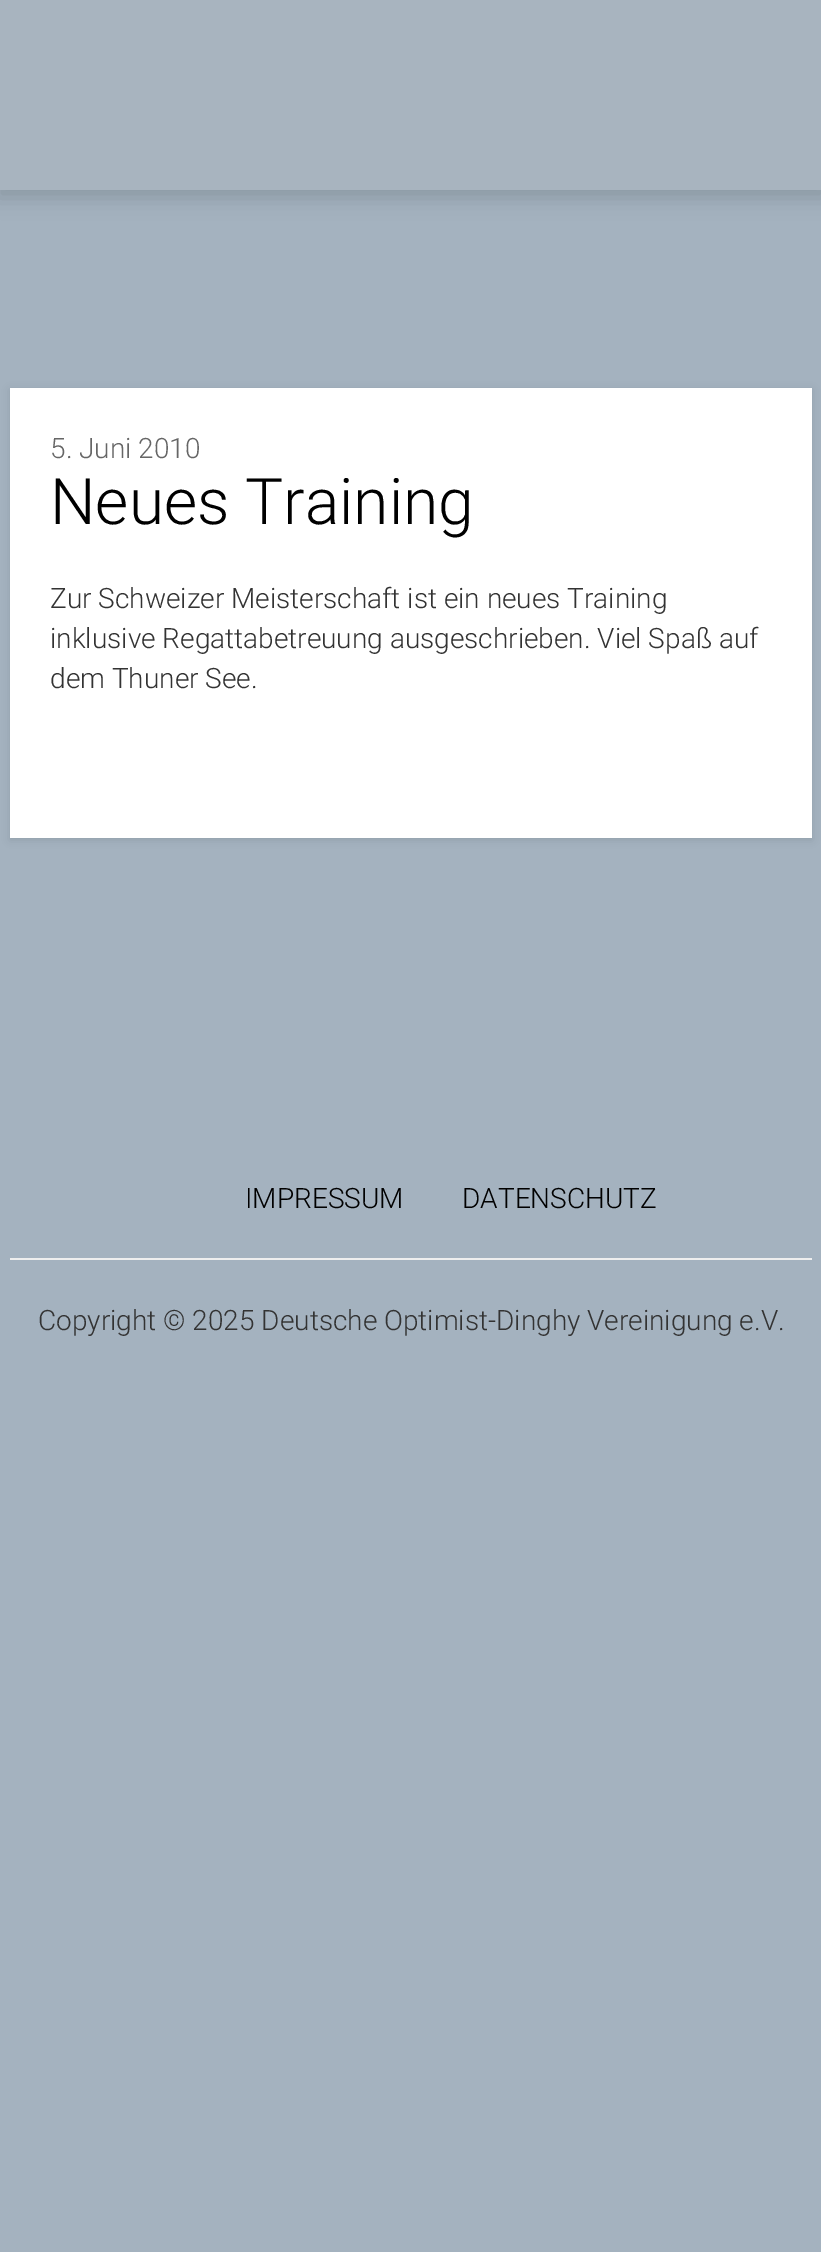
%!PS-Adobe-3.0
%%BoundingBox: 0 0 821 2252
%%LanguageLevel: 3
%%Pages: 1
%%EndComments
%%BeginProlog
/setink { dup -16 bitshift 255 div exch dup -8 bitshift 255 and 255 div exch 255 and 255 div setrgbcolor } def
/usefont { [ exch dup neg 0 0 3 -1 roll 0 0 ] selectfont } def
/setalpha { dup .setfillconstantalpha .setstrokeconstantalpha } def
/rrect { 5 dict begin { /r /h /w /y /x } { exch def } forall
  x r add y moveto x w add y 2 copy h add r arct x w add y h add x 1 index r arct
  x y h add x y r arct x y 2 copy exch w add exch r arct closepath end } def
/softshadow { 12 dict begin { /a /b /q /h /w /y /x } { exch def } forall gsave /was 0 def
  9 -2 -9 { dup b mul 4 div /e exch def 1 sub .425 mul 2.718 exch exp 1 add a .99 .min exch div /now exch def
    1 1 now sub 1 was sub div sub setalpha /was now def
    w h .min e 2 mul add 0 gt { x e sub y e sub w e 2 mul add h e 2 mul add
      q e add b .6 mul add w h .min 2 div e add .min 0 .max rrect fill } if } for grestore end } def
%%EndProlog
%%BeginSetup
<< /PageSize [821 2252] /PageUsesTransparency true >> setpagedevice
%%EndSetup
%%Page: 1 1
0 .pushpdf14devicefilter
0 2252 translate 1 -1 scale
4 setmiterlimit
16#A4B2BF setink
0 0 821 2252 rectfill
16#000000 setink
-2 4 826 194 0 10 0.15 softshadow
16#A8B4BF setink
0 0 821 190 rectfill
16#000000 setink
10 390 802 450 0 4 0.1 softshadow
16#FFFFFF setink
10 388 802 450 rectfill
/Roboto-Light 28 usefont
16#666666 setink
50 458 moveto (5. Juni 2010) show
/Roboto-Light 64 usefont
16#000000 setink
50 524 moveto (Neues Training) show
/Roboto-Light 28 usefont
16#333333 setink
[
    [(Zur Schweizer Meisterschaft ist ein neues Training) 50 608]
    [(inklusive Regattabetreuung ausgeschrieben. Viel Spaß auf) 50 648]
    [(dem Thuner See.) 50 688]
] { aload pop moveto show } forall
16#000000 setink
245 1208 moveto (IMPRESSUM) show
462 1208 moveto (DATENSCHUTZ) show
16#EEEEEE setink
10 1258 802 2 rectfill
16#333333 setink
38 1330 moveto (Copyright © 2025 Deutsche Optimist-Dinghy Vereinigung e.V.) show
.poppdf14devicefilter showpage
%%EOF
